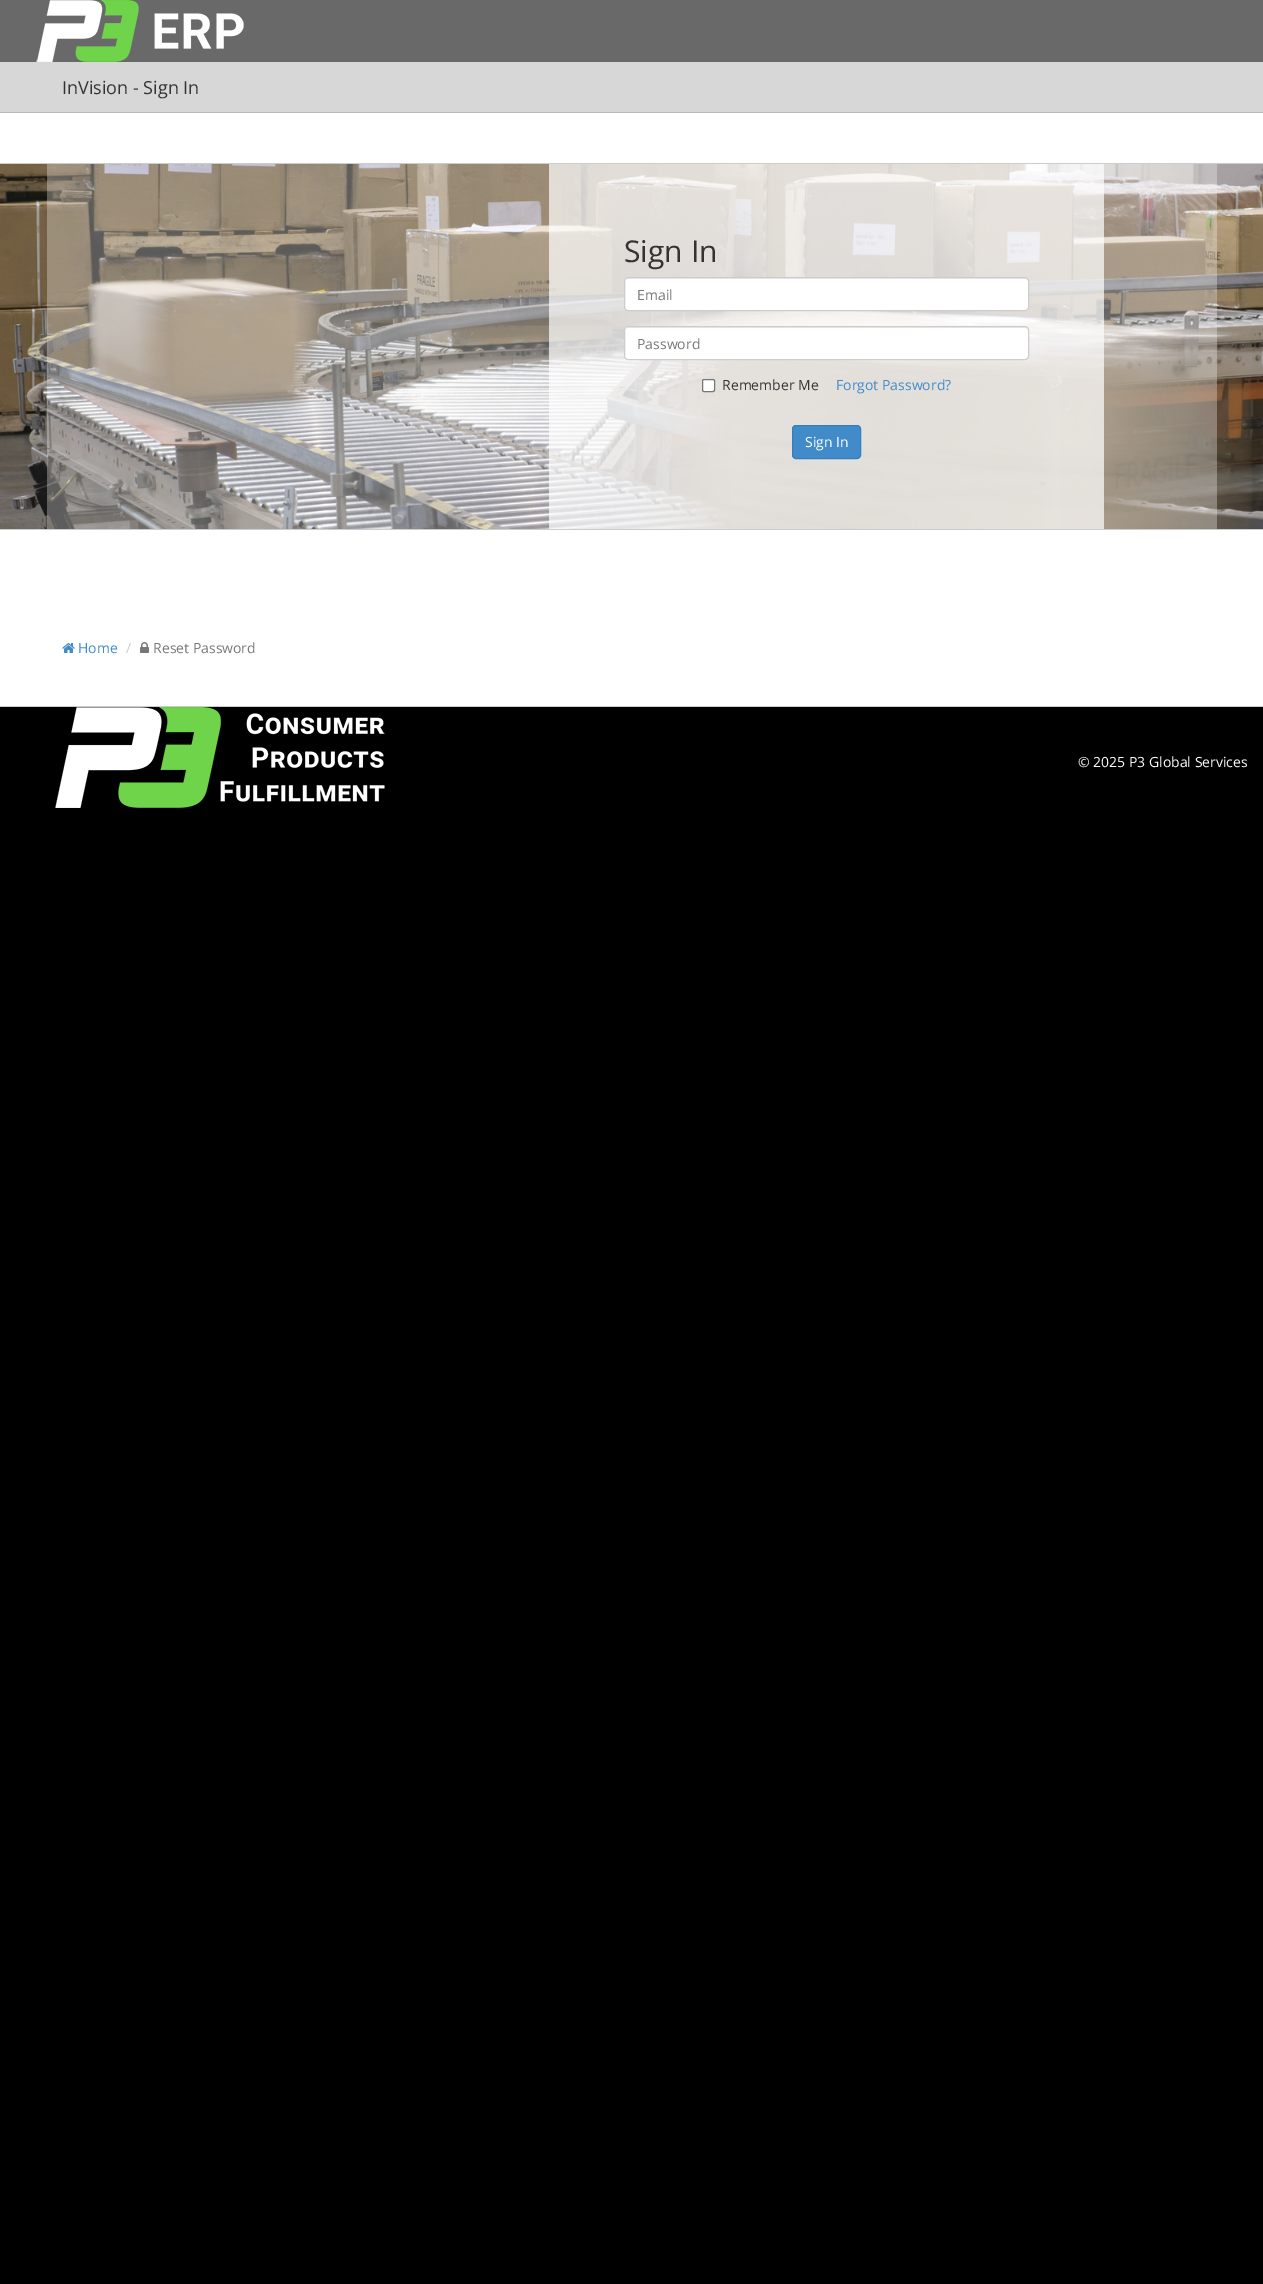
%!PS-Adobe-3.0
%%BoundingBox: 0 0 1263 2284
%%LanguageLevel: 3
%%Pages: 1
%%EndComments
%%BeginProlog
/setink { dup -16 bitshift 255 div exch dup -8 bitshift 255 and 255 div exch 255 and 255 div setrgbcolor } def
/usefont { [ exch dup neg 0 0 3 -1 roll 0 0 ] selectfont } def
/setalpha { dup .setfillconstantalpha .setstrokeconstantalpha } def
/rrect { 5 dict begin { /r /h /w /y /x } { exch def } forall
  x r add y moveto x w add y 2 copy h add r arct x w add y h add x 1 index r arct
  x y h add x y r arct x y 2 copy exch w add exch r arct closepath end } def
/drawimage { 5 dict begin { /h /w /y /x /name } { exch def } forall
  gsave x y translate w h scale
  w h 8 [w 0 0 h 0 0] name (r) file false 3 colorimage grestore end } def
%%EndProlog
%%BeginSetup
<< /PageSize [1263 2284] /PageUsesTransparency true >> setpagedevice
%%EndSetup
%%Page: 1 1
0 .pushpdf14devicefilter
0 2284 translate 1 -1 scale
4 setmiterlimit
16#000000 setink
0 0 1263 2284 rectfill
16#FFFFFF setink
0 113 1263 593 rectfill
16#696969 setink
0 0 1263 62 rectfill
(img1.raw) 36 0 208 62 drawimage
16#D7D7D7 setink
0 62 1263 50 rectfill
16#BBBBBB setink
0 112 1263 1 rectfill
/OpenSans-Regular 18 usefont
16#333333 setink
62 94 moveto (InVision - Sign In) show
(img2.raw) 0 164 1263 365 drawimage
[
    [0 163 1263 1 16#CCCCCC]
    [0 529 1263 1 16#CCCCCC]
] { aload pop setink rectfill } forall
0.7 setalpha
[
    [549 164 555 365 16#FFFFFF]
] { aload pop setink rectfill } forall
/OpenSans-Regular 30 usefont
1 setalpha
16#333333 setink
624 262 moveto (Sign In) show
16#FFFFFF setink
624 277 405 34 4 rrect fill
16#ECECEC setink
628 279 moveto 1025 279 lineto 1027 279 1028 280 1028 282 curveto 1028 280 1027 278 1025 278 curveto 628 278 lineto 626 278 625 280 625 282 curveto 625 280 626 279 628 279 curveto closepath fill
16#CCCCCC setink
624.5 277.5 404 33 3.5 rrect stroke
/OpenSans-Regular 14 usefont
16#777777 setink
637 300 moveto (Email) show
16#FFFFFF setink
624 326 405 34 4 rrect fill
16#ECECEC setink
628 328 moveto 1025 328 lineto 1027 328 1028 329 1028 331 curveto 1028 329 1027 327 1025 327 curveto 628 327 lineto 626 327 625 329 625 331 curveto 625 329 626 328 628 328 curveto closepath fill
16#CCCCCC setink
624.5 326.5 404 33 3.5 rrect stroke
16#777777 setink
637 349 moveto (Password) show
16#FFFFFF setink
702.5 379.5 12 12 1.5 rrect gsave fill grestore
16#767676 setink
stroke
16#333333 setink
722 390 moveto (Remember Me) show
16#428BCA setink
836 390 moveto (Forgot Password?) show
792.5 425.5 68 33 3.5 rrect gsave fill grestore
16#357EBD setink
stroke
16#FFFFFF setink
805 447 moveto (Sign In) show
(img3.raw) 62 643 13 10 drawimage
16#428BCA setink
78 653 moveto (Home) show
16#CCCCCC setink
126 653 moveto (/) show
(img4.raw) 140 642 9 11 drawimage
16#777777 setink
153 653 moveto (Reset Password) show
16#CCCCCC setink
0 706 1263 1 rectfill
(img5.raw) 55 707 330 101 drawimage
16#FFFFFF setink
1078 767 moveto (© 2025 P3 Global Services) show
.poppdf14devicefilter showpage
%%EOF
